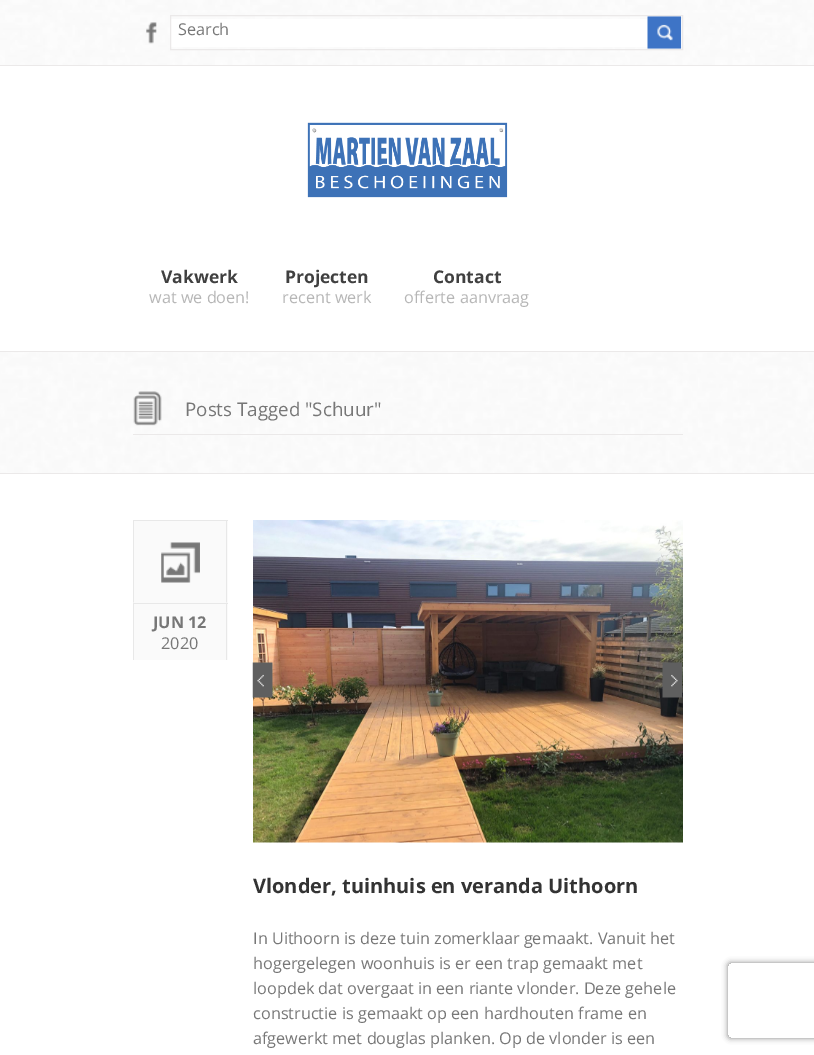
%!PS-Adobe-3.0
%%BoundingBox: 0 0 814 1055
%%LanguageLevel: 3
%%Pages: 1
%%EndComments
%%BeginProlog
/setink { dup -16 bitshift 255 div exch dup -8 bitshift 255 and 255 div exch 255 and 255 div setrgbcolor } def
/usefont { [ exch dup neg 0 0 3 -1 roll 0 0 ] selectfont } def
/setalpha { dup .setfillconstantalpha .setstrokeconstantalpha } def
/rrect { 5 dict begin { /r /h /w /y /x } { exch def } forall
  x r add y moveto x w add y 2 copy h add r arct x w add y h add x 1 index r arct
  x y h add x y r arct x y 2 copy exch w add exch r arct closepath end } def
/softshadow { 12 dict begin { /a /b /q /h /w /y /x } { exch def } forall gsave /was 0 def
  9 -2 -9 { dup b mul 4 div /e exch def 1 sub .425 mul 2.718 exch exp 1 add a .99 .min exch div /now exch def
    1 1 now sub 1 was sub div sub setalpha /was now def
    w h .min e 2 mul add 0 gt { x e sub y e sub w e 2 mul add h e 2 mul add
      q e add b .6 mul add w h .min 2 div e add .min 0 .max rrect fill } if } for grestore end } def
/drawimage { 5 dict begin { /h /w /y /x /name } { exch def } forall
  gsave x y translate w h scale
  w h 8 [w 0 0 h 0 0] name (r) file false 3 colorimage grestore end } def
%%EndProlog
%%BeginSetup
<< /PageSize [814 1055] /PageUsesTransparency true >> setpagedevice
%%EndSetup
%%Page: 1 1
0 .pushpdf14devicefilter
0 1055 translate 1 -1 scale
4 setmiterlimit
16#FFFFFF setink
0 0 814 1055 rectfill
(img1.raw) 0 0 814 65 drawimage
16#EBE9E9 setink
0 65 814 1 rectfill
(img2.raw) 146 22 11 22 drawimage
16#FFFFFF setink
171 19 511 28 rectfill
16#EBE9E9 setink
170.5 15.5 512 34 rectstroke
/OpenSans-Regular 16.25 usefont
16#777777 setink
178 35 moveto (Search) show
(img3.raw) 647 16 35 33 drawimage
(img4.raw) 307 122 201 76 drawimage
/OpenSans-Bold 17.5 usefont
16#404040 setink
161 283 moveto (Vakwerk) show
/OpenSans-Regular 16.25 usefont
16#B6B6B6 setink
149 303 moveto (wat we doen!) show
/OpenSans-Bold 17.5 usefont
16#404040 setink
285 283 moveto (Projecten) show
/OpenSans-Regular 16.25 usefont
16#B6B6B6 setink
282 303 moveto (recent werk) show
/OpenSans-Bold 17.5 usefont
16#404040 setink
433 283 moveto (Contact) show
/OpenSans-Regular 16.25 usefont
16#B6B6B6 setink
404 303 moveto (offerte aanvraag) show
(img5.raw) 0 352 814 121 drawimage
16#EBE9E9 setink
0 351 814 1 rectfill
0 473 814 1 rectfill
(img6.raw) 133 391 29 35 drawimage
/OpenSans-Regular 18.75 usefont
16#777777 setink
185 416 moveto (Posts Tagged "Schuur") show
16#EBE9E9 setink
133 434 550 1 rectfill
16#FAFAFA setink
134 521 94 82 rectfill
(img7.raw) 161 542 39 41 drawimage
[
    [133 520 95 1 16#E8E8E8]
    [226 520 1 83 16#E8E8E8]
    [133 520 1 83 16#E8E8E8]
    [134 604 94 56 16#FAFAFA]
] { aload pop setink rectfill } forall
0.5 setalpha
[
    [133 602 94 1 16#FAFAFA]
] { aload pop setink rectfill } forall
1 setalpha
[
    [133 603 95 1 16#E8E8E8]
    [226 603 1 57 16#E8E8E8]
    [133 603 1 57 16#E8E8E8]
] { aload pop setink rectfill } forall
/OpenSans-Bold 16.25 usefont
16#777777 setink
153 628 moveto (JUN 12) show
/OpenSans-Regular 16.25 usefont
161 649 moveto (2020) show
(img8.raw) 253 520 430 323 drawimage
(img9.raw) 252 662 21 36 drawimage
(img10.raw) 662 662 21 36 drawimage
/OpenSans-Bold 20 usefont
16#333333 setink
253 893 moveto (Vlonder, tuinhuis en veranda Uithoorn) show
/OpenSans-Regular 16.25 usefont
16#777777 setink
[
    [(In Uithoorn is deze tuin zomerklaar gemaakt. Vanuit het) 253 944]
    [(hogergelegen woonhuis is er een trap gemaakt met) 253 969]
    [(loopdek dat overgaat in een riante vlonder. Deze gehele) 253 994]
    [(constructie is gemaakt op een hardhouten frame en) 253 1019]
    [(afgewerkt met douglas planken. Op de vlonder is een) 253 1044]
] { aload pop moveto show } forall
gsave
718 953 moveto 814 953 lineto 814 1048 lineto 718 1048 lineto closepath 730.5 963 moveto 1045.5 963 lineto 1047 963 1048 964 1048 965.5 curveto 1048 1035.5 lineto 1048 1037 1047 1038 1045.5 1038 curveto 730.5 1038 lineto 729 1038 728 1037 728 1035.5 curveto 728 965.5 lineto 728 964 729 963 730.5 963 curveto closepath eoclip newpath
16#808080 setink
728 963 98 75 2.5 3 1 softshadow
grestore
.poppdf14devicefilter showpage
%%EOF
